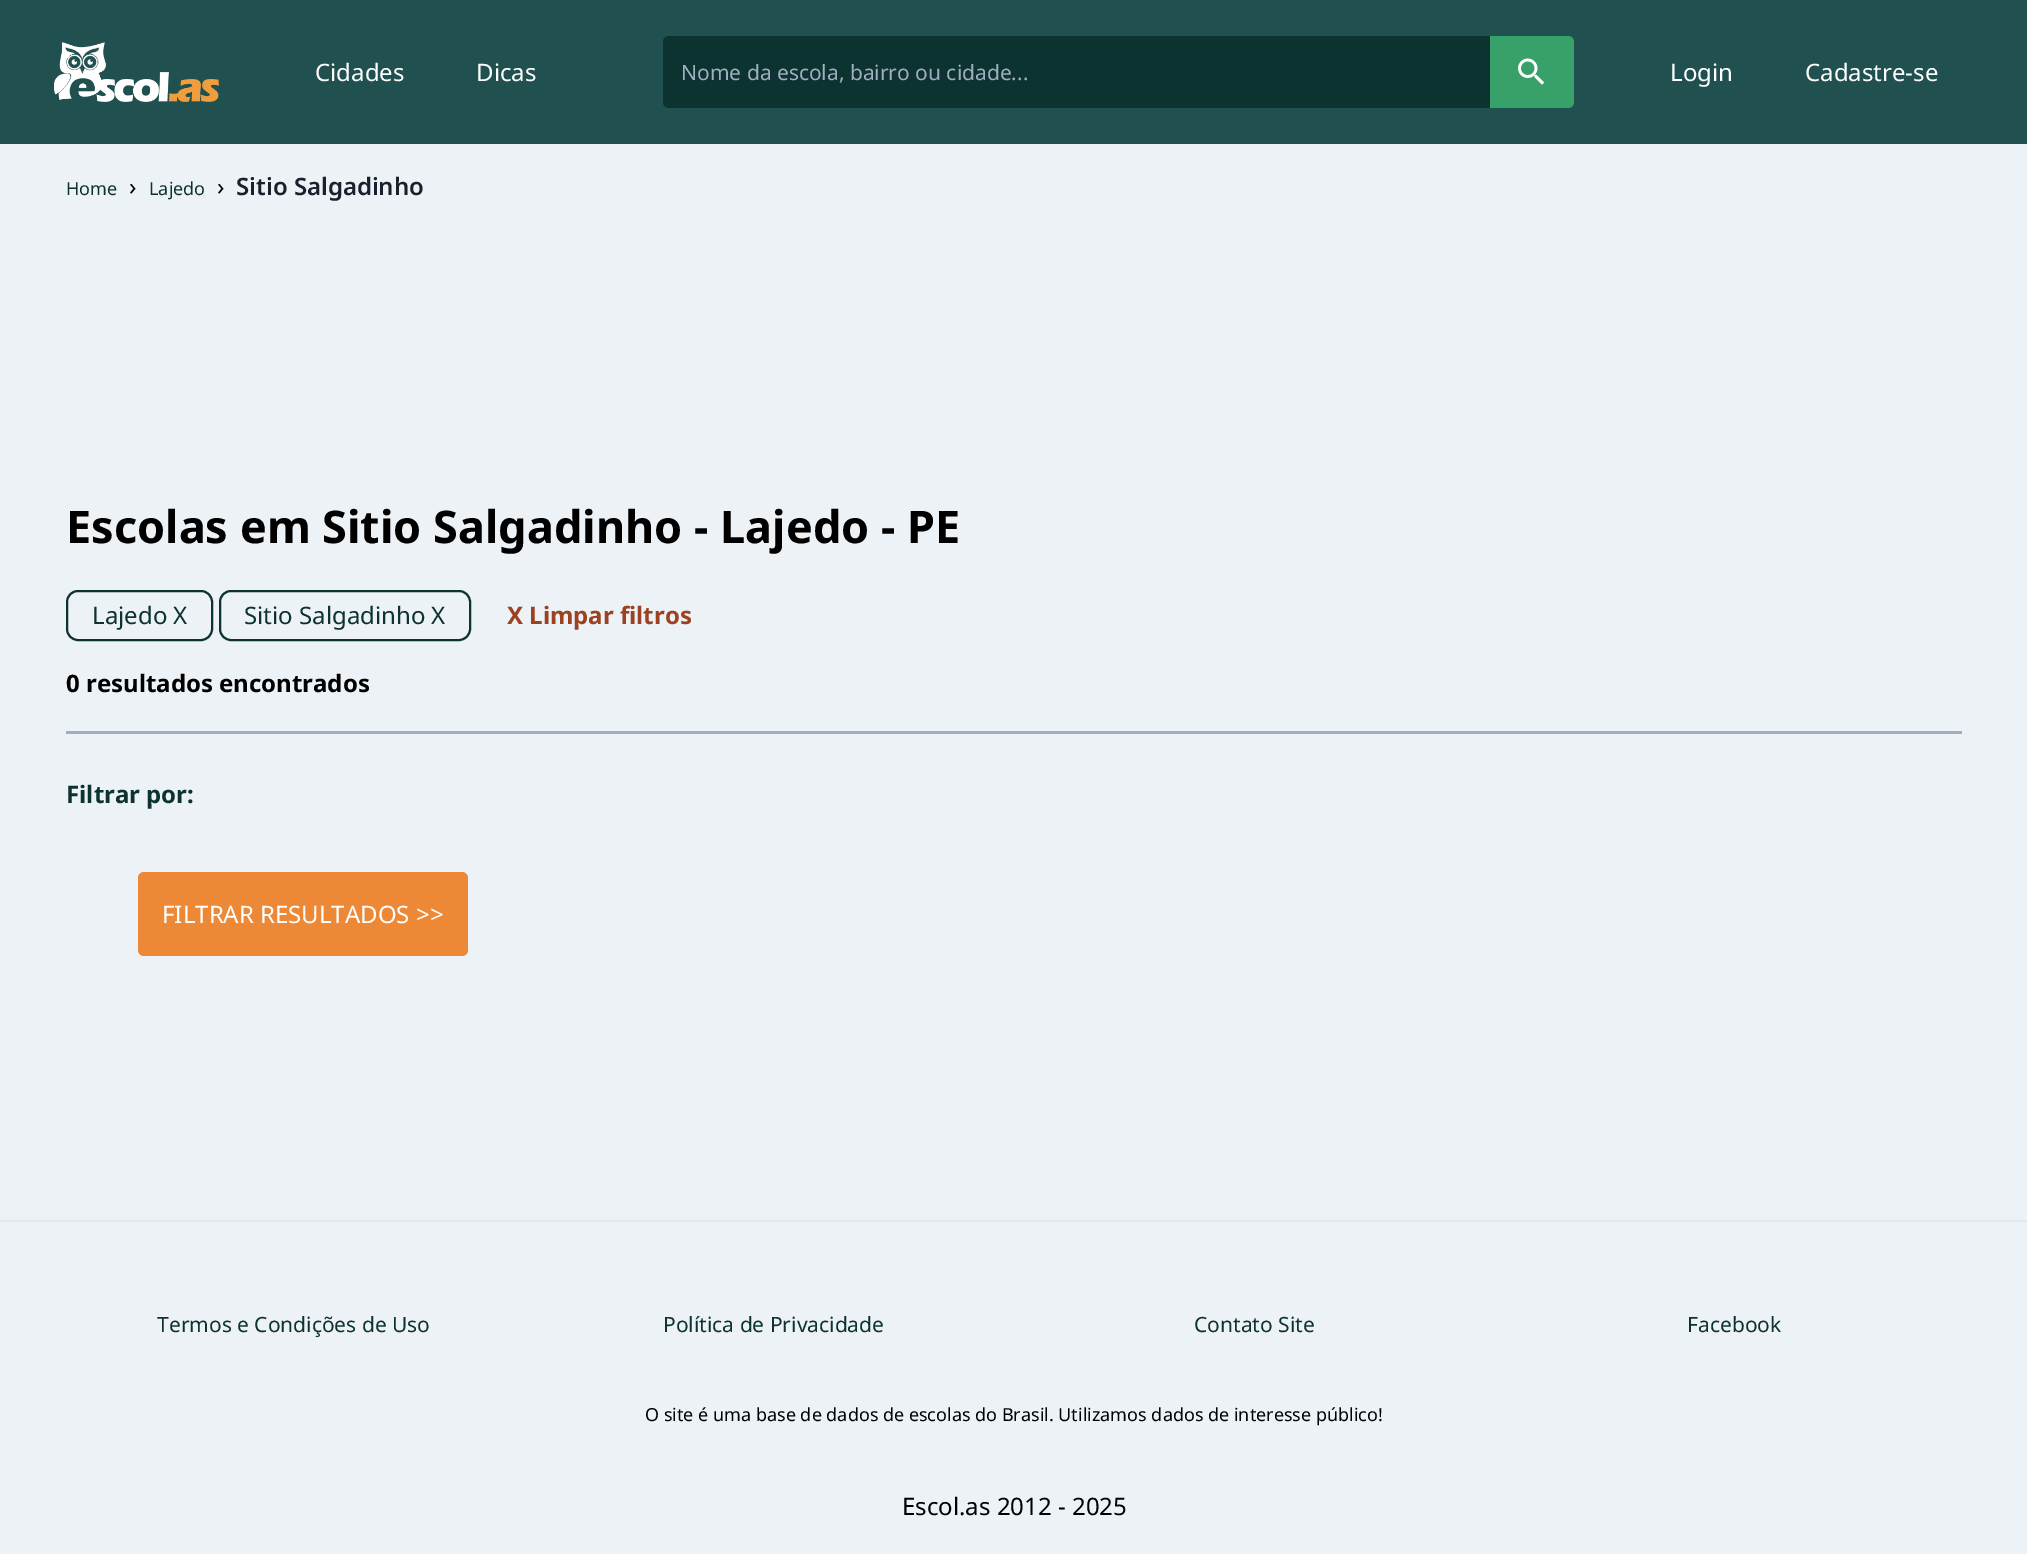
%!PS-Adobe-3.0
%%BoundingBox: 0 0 2027 1554
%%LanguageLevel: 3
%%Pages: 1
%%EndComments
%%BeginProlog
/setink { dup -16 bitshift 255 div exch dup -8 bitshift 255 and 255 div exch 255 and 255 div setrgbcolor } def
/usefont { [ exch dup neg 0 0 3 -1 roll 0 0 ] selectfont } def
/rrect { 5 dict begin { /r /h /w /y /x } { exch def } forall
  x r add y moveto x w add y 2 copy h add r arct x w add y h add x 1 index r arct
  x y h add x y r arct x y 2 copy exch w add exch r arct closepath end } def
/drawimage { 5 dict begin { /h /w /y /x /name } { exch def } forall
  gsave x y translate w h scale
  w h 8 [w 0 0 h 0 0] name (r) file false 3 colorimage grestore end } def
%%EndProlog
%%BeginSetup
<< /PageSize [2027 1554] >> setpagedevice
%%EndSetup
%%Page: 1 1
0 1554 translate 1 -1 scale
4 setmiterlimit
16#EDF2F7 setink
0 0 2027 1554 rectfill
16#20504F setink
0 0 2027 144 rectfill
(img1.raw) 54 42 165 60 drawimage
/NotoSans-Regular 24 usefont
16#FFFFFF setink
315 81 moveto (Cidades) show
476 81 moveto (Dicas) show
16#0D3331 setink
669 36 moveto 1490 36 lineto 1490 108 lineto 669 108 lineto 665.5 108 663 105.5 663 102 curveto 663 42 lineto 663 38.5 665.5 36 669 36 curveto closepath fill
/NotoSans-Regular 21 usefont
16#A0AEC0 setink
681 80 moveto (Nome da escola, bairro ou cidade...) show
16#38A169 setink
1490 36 moveto 1568 36 lineto 1571.5 36 1574 38.5 1574 42 curveto 1574 102 lineto 1574 105.5 1571.5 108 1568 108 curveto 1490 108 lineto closepath fill
(img2.raw) 1518 58 27 27 drawimage
/NotoSans-Regular 24 usefont
16#FFFFFF setink
1670 81 moveto (Login) show
1805 81 moveto (Cadastre-se) show
/NotoSans-Regular 18 usefont
16#0D3331 setink
66 195 moveto (Home) show
/NotoSans-Regular 24 usefont
16#000000 setink
129 195 moveto (›) show
/NotoSans-Regular 18 usefont
16#0D3331 setink
149 195 moveto (Lajedo) show
/NotoSans-Regular 24 usefont
16#000000 setink
217 195 moveto (›) show
/NotoSans-SemiBold 24 usefont
16#1A202C setink
236 195 moveto (Sitio Salgadinho) show
/NotoSans-Bold 45 usefont
16#000000 setink
66 543 moveto (Escolas em Sitio Salgadinho - Lajedo - PE) show
16#0D3331 setink
2 setlinewidth
67 591 145 49 11 rrect stroke
/NotoSans-Regular 24 usefont
92 624 moveto (Lajedo X) show
220 591 250 49 11 rrect stroke
244 624 moveto (Sitio Salgadinho X) show
/NotoSans-Bold 24 usefont
16#9C4221 setink
507 624 moveto (X Limpar filtros) show
16#000000 setink
66 692 moveto (0 resultados encontrados) show
16#A0AEC0 setink
66 731 1896 3 rectfill
16#0D3331 setink
66 803 moveto (Filtrar por:) show
16#ED8936 setink
138 872 330 84 6 rrect fill
/NotoSans-Regular 24 usefont
16#FFFFFF setink
162 923 moveto (FILTRAR RESULTADOS >>) show
16#E2E8F0 setink
0 1220 2027 2 rectfill
/NotoSans-Regular 21 usefont
16#0D3331 setink
[
    [(Termos e Condições de Uso) 157 1332]
    [(Política de Privacidade) 663 1332]
    [(Contato Site) 1194 1332]
    [(Facebook) 1687 1332]
] { aload pop moveto show } forall
/NotoSans-Regular 18 usefont
16#000000 setink
645 1421 moveto (O site é uma base de dados de escolas do Brasil. Utilizamos dados de interesse público!) show
/NotoSans-Regular 24 usefont
902 1515 moveto (Escol.as 2012 - 2025) show
showpage
%%EOF
